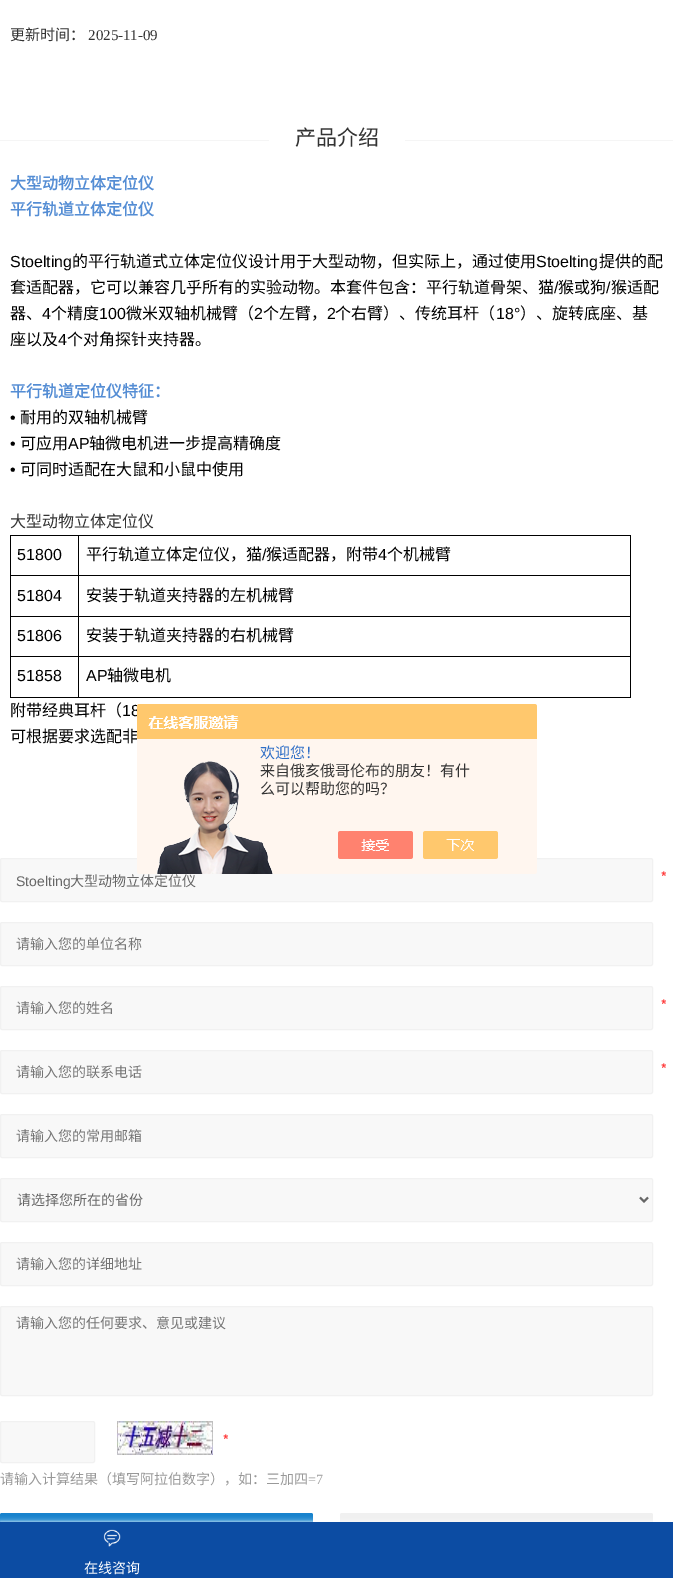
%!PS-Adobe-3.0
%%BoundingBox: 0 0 673 1578
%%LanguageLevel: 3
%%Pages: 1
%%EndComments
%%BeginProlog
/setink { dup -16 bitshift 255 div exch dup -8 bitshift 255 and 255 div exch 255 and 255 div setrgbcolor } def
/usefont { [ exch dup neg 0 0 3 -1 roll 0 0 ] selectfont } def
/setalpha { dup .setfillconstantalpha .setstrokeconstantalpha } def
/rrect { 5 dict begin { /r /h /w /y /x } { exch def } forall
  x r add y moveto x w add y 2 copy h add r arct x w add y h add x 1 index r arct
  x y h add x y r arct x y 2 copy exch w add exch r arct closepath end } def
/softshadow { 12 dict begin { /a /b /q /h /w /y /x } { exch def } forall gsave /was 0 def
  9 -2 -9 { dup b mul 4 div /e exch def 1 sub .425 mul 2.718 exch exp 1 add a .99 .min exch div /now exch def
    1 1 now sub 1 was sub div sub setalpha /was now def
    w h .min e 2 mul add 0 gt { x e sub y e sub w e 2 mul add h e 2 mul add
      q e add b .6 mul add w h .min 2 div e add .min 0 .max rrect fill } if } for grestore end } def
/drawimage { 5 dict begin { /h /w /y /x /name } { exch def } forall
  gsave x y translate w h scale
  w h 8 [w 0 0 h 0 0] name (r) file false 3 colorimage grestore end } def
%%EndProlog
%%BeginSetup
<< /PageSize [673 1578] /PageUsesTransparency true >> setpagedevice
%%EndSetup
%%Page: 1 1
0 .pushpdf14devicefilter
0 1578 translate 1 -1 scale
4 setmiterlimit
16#FFFFFF setink
0 0 673 1578 rectfill
/NotoSansCJKSC-Regular 15 usefont
16#333333 setink
10 40 moveto (更新时间：) show
/LiberationSerif-Regular 15 usefont
88 40 moveto (2025-11-09) show
16#F5F5F5 setink
0 140 673 1 rectfill
16#FFFFFF setink
269 140 136 1 rectfill
/NotoSansCJKSC-Regular 21 usefont
16#333333 setink
295 145 moveto (产品介绍) show
/NotoSansCJKSC-Bold 16 usefont
16#548DD4 setink
10 189 moveto (大型动物立体定位仪) show
10 215 moveto (平行轨道立体定位仪) show
/LiberationSans-Regular 16 usefont
16#000000 setink
10 267 moveto (Stoelting) show
/NotoSansCJKSC-Regular 16 usefont
72 267 moveto (的平行轨道式立体定位仪设计用于大型动物，但实际上，通过使用) show
/LiberationSans-Regular 16 usefont
536 267 moveto (Stoelting) show
/NotoSansCJKSC-Regular 16 usefont
599 267 moveto (提供的配) show
10 293 moveto (套适配器，它可以兼容几乎所有的实验动物。本套件包含：平行轨道骨架、猫) show
/LiberationSans-Regular 16 usefont
554 293 moveto (/) show
/NotoSansCJKSC-Regular 16 usefont
558 293 moveto (猴或狗) show
/LiberationSans-Regular 16 usefont
606 293 moveto (/) show
/NotoSansCJKSC-Regular 16 usefont
611 293 moveto (猴适配) show
10 319 moveto (器、) show
/LiberationSans-Regular 16 usefont
42 319 moveto (4) show
/NotoSansCJKSC-Regular 16 usefont
51 319 moveto (个精度) show
/LiberationSans-Regular 16 usefont
99 319 moveto (100) show
/NotoSansCJKSC-Regular 16 usefont
126 319 moveto (微米双轴机械臂（) show
/LiberationSans-Regular 16 usefont
254 319 moveto (2) show
/NotoSansCJKSC-Regular 16 usefont
263 319 moveto (个左臂，) show
/LiberationSans-Regular 16 usefont
327 319 moveto (2) show
/NotoSansCJKSC-Regular 16 usefont
335 319 moveto (个右臂）、传统耳杆（) show
/LiberationSans-Regular 16 usefont
496 319 moveto (18°) show
/NotoSansCJKSC-Regular 16 usefont
520 319 moveto (）、旋转底座、基) show
10 345 moveto (座以及) show
/LiberationSans-Regular 16 usefont
58 345 moveto (4) show
/NotoSansCJKSC-Regular 16 usefont
67 345 moveto (个对角探针夹持器。) show
/NotoSansCJKSC-Bold 16 usefont
16#548DD4 setink
10 397 moveto (平行轨道定位仪特征：) show
/LiberationSans-Regular 16 usefont
16#000000 setink
10 423 moveto (•) show
/NotoSansCJKSC-Regular 16 usefont
20 423 moveto (耐用的双轴机械臂) show
/LiberationSans-Regular 16 usefont
10 449 moveto (•) show
/NotoSansCJKSC-Regular 16 usefont
20 449 moveto (可应用) show
/LiberationSans-Regular 16 usefont
68 449 moveto (AP) show
/NotoSansCJKSC-Regular 16 usefont
89 449 moveto (轴微电机进一步提高精确度) show
/LiberationSans-Regular 16 usefont
10 475 moveto (•) show
/NotoSansCJKSC-Regular 16 usefont
20 475 moveto (可同时适配在大鼠和小鼠中使用) show
16#333333 setink
10 527 moveto (大型动物立体定位仪) show
[
    [78 535 553 1 16#000000]
    [78 575 553 1 16#000000]
    [78 616 553 1 16#000000]
    [78 656 553 1 16#000000]
    [630 656 1 42 16#000000]
    [78 697 553 1 16#000000]
    [78 656 1 42 16#000000]
    [10 656 69 1 16#000000]
    [78 616 1 41 16#000000]
    [10 616 69 1 16#000000]
    [78 575 1 42 16#000000]
    [10 575 69 1 16#000000]
    [78 535 1 41 16#000000]
    [10 535 69 1 16#000000]
    [10 697 69 1 16#000000]
    [10 656 1 42 16#000000]
    [10 616 1 41 16#000000]
    [10 575 1 42 16#000000]
    [10 535 1 41 16#000000]
] { aload pop setink rectfill } forall
/LiberationSans-Regular 16 usefont
17 560 moveto (51800) show
[
    [630 616 1 41 16#000000]
    [630 575 1 42 16#000000]
    [630 535 1 41 16#000000]
] { aload pop setink rectfill } forall
/NotoSansCJKSC-Regular 16 usefont
86 560 moveto (平行轨道立体定位仪，猫) show
/LiberationSans-Regular 16 usefont
262 560 moveto (/) show
/NotoSansCJKSC-Regular 16 usefont
266 560 moveto (猴适配器，附带) show
/LiberationSans-Regular 16 usefont
378 560 moveto (4) show
/NotoSansCJKSC-Regular 16 usefont
387 560 moveto (个机械臂) show
/LiberationSans-Regular 16 usefont
17 601 moveto (51804) show
/NotoSansCJKSC-Regular 16 usefont
86 601 moveto (安装于轨道夹持器的左机械臂) show
/LiberationSans-Regular 16 usefont
17 641 moveto (51806) show
/NotoSansCJKSC-Regular 16 usefont
86 641 moveto (安装于轨道夹持器的右机械臂) show
/LiberationSans-Regular 16 usefont
17 681 moveto (51858) show
86 681 moveto (AP) show
/NotoSansCJKSC-Regular 16 usefont
107 681 moveto (轴微电机) show
10 716 moveto (附带经典耳杆（) show
/LiberationSans-Regular 16 usefont
122 716 moveto (18) show
/NotoSansCJKSC-Regular 16 usefont
10 742 moveto (可根据要求选配非) show
(img1.raw) 661 871 5 5 drawimage
16#F8F8F8 setink
0.5 858.5 652 43 1.5 rrect gsave fill grestore
16#F1F1F1 setink
stroke
/LiberationSans-Regular 14 usefont
16#666666 setink
16 886 moveto (Stoelting) show
/NotoSansCJKSC-Regular 14 usefont
70 886 moveto (大型动物立体定位仪) show
16#F8F8F8 setink
0.5 922.5 652 43 1.5 rrect gsave fill grestore
16#F1F1F1 setink
stroke
16#757575 setink
16 949 moveto (请输入您的单位名称) show
(img1.raw) 661 999 5 5 drawimage
16#F8F8F8 setink
0.5 986.5 652 43 1.5 rrect gsave fill grestore
16#F1F1F1 setink
stroke
16#757575 setink
16 1013 moveto (请输入您的姓名) show
(img1.raw) 661 1063 5 5 drawimage
16#F8F8F8 setink
0.5 1050.5 652 43 1.5 rrect gsave fill grestore
16#F1F1F1 setink
stroke
16#757575 setink
16 1077 moveto (请输入您的联系电话) show
16#F8F8F8 setink
0.5 1114.5 652 43 1.5 rrect gsave fill grestore
16#F1F1F1 setink
stroke
16#757575 setink
16 1141 moveto (请输入您的常用邮箱) show
16#F8F8F8 setink
0.5 1178.5 652 43 1.5 rrect gsave fill grestore
16#F1F1F1 setink
stroke
16#666666 setink
2 setlinewidth
640 1197.5 moveto 644 1201.5 lineto 648 1197.5 lineto stroke
17 1205 moveto (请选择您所在的省份) show
16#F8F8F8 setink
0.5 1242.5 652 43 1.5 rrect gsave fill grestore
16#F1F1F1 setink
1 setlinewidth
stroke
16#757575 setink
16 1269 moveto (请输入您的详细地址) show
16#F8F8F8 setink
0.5 1306.5 652 89 1.5 rrect gsave fill grestore
16#F1F1F1 setink
stroke
16#757575 setink
16 1328 moveto (请输入您的任何要求、意见或建议) show
16#F8F8F8 setink
0.5 1421.5 94 41 1.5 rrect gsave fill grestore
16#F1F1F1 setink
stroke
(img1.raw) 223 1434 5 5 drawimage
(img2.raw) 117 1421 96 34 drawimage
16#999999 setink
0 1484 moveto (请输入计算结果（填写阿拉伯数字），如：三加四) show
/LiberationSerif-Regular 14 usefont
308 1484 moveto (=7) show
16#1983CD setink
0 1513 313 44 2 rrect fill
16#F0F0F0 setink
340 1513 313 44 2 rrect fill
(img3.raw) 137 704 400 170 drawimage
/NotoSansCJKSC-Regular 15 usefont
16#2E6EC6 setink
260 758 moveto (欢迎您！) show
16#333333 setink
260 776 moveto (来自俄亥俄哥伦布的朋友！有什) show
260 794 moveto (么可以帮助您的吗？) show
16#FFFFFF setink
0 1522 673 56 0 2.5 1 softshadow
16#0C4CA3 setink
0 1522 673 56 rectfill
(img4.raw) 103 1529 18 18 drawimage
/NotoSansCJKSC-Regular 14 usefont
16#FFFFFF setink
84 1573 moveto (在线咨询) show
.poppdf14devicefilter showpage
%%EOF
